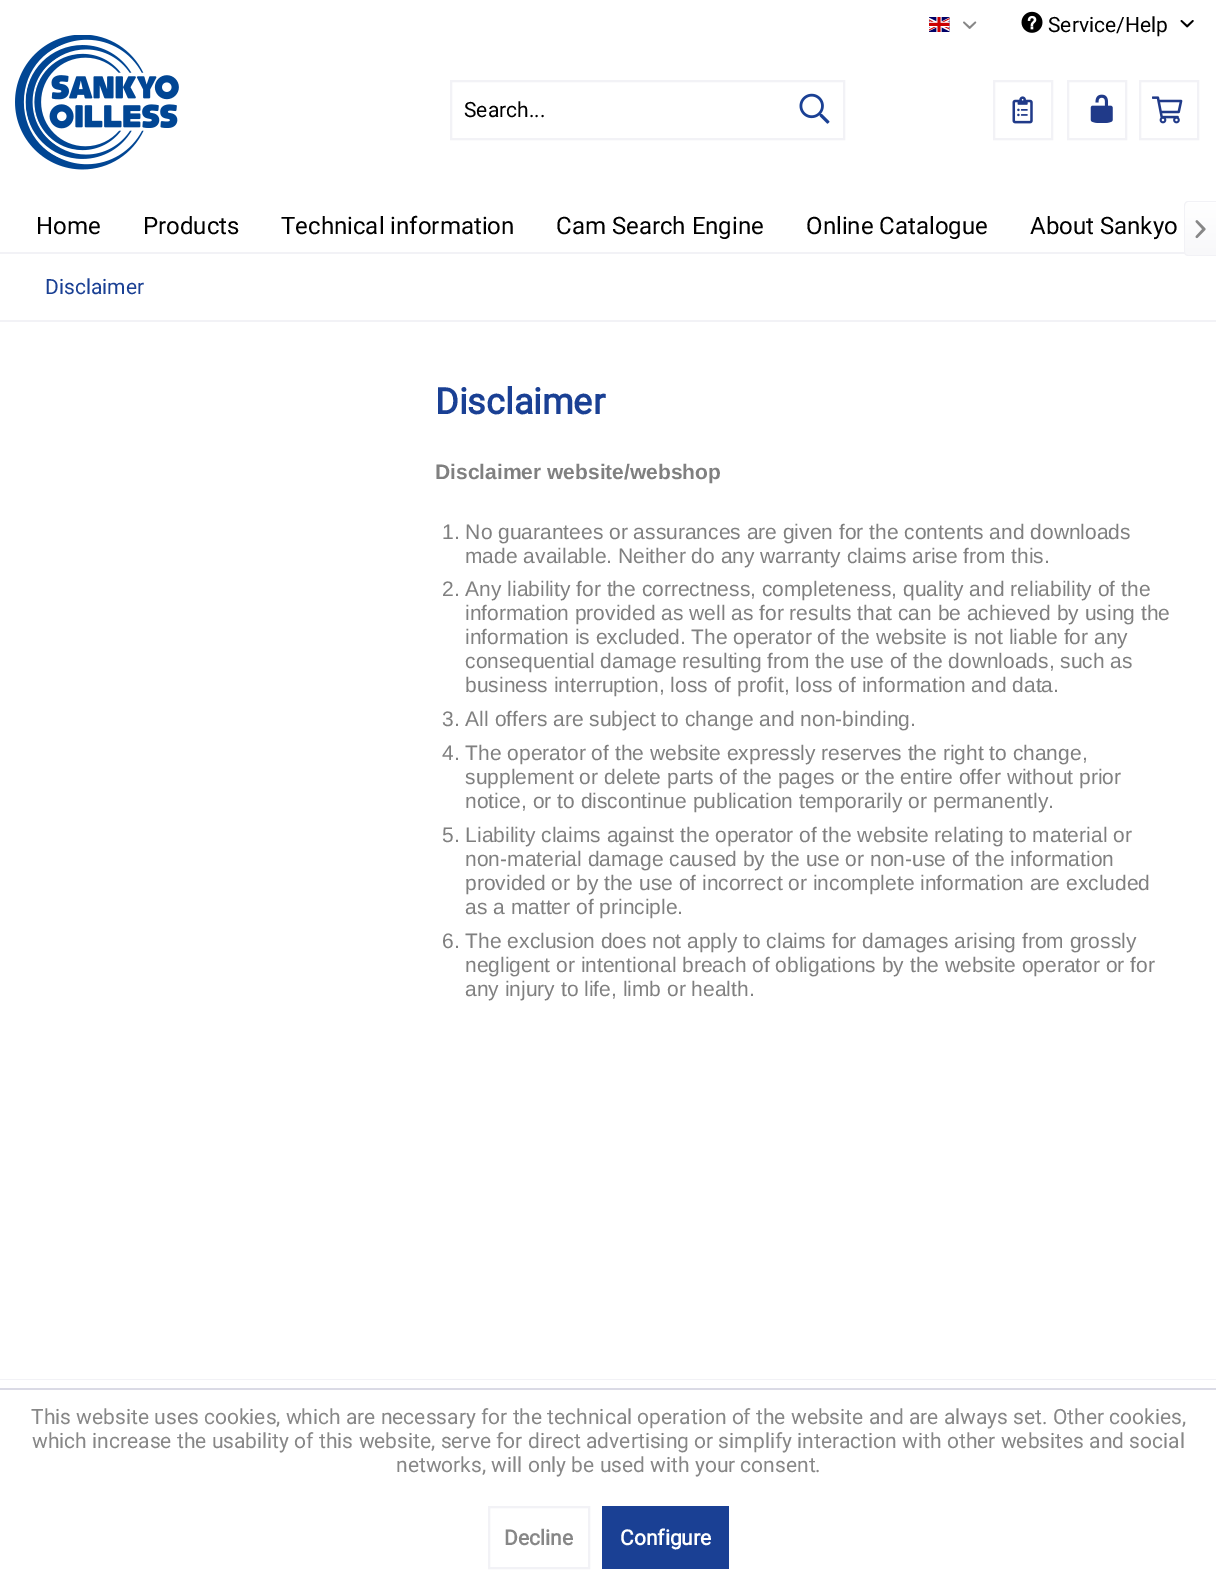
%!PS-Adobe-3.0
%%BoundingBox: 0 0 1216 1584
%%LanguageLevel: 3
%%Pages: 1
%%EndComments
%%BeginProlog
/setink { dup -16 bitshift 255 div exch dup -8 bitshift 255 and 255 div exch 255 and 255 div setrgbcolor } def
/usefont { [ exch dup neg 0 0 3 -1 roll 0 0 ] selectfont } def
/drawimage { 5 dict begin { /h /w /y /x /name } { exch def } forall
  gsave x y translate w h scale
  w h 8 [w 0 0 h 0 0] name (r) file false 3 colorimage grestore end } def
%%EndProlog
%%BeginSetup
<< /PageSize [1216 1584] >> setpagedevice
%%EndSetup
%%Page: 1 1
0 1584 translate 1 -1 scale
4 setmiterlimit
16#FFFFFF setink
0 0 1216 1584 rectfill
(img1.raw) 929 17 21 15 drawimage
(img2.raw) 963 21 14 8 drawimage
(img3.raw) 1021 11 22 22 drawimage
/Roboto-Regular 21 usefont
16#000000 setink
1048 32 moveto (Service/Help) show
(img4.raw) 1180 20 14 8 drawimage
(img5.raw) 15 35 164 135 drawimage
16#F2F2F6 setink
2 setlinewidth
451 81 393 58 rectstroke
16#000000 setink
464 117 moveto (Search...) show
(img6.raw) 799 93 31 31 drawimage
16#F2F2F6 setink
994 81 58 58 rectstroke
(img7.raw) 1012 96 21 28 drawimage
1068 81 58 58 rectstroke
(img8.raw) 1090 94 23 29 drawimage
1140 81 58 58 rectstroke
(img9.raw) 1152 96 31 28 drawimage
0 252 1186 2 rectfill
/Roboto-Regular 24 usefont
16#000000 setink
[
    [(Home) 36 234]
    [(Products) 143 234]
    [(Technical information) 281 234]
    [(Cam Search Engine) 556 234]
    [(Online Catalogue) 806 234]
    [(About Sankyo) 1030 234]
] { aload pop moveto show } forall
gsave 1188 203 moveto 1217 203 lineto 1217 255 lineto 1188 255 lineto 1186.5 255 1185 253.5 1185 252 curveto 1185 206 lineto 1185 204.5 1186.5 203 1188 203 curveto closepath clip newpath
<< /ShadingType 2 /ColorSpace /DeviceRGB /Coords [1201 203 1201 255] /Extend [true true] /Function << /FunctionType 2 /Domain [0 1] /C0 [1 1 1] /C1 [0.973 0.973 0.98] /N 1 >> >> shfill grestore
16#F2F2F6 setink
1188 201 moveto 1216 201 lineto 1216 256 lineto 1188 256 lineto 1186 256 1184 254 1184 252 curveto 1184 206 lineto 1184 203 1186 201 1188 201 curveto closepath 1188 202 moveto 1216 202 lineto 1216 255 lineto 1188 255 lineto 1186 255 1185 254 1185 252 curveto 1185 206 lineto 1185 204 1186 202 1188 202 curveto closepath eofill
(img10.raw) 1195 220 11 19 drawimage
0 320 1216 2 rectfill
/Roboto-Regular 21 usefont
16#1A4094 setink
45 294 moveto (Disclaimer) show
/Roboto-Bold 36 usefont
435 414 moveto (Disclaimer) show
/LiberationSans-Bold 21 usefont
16#808080 setink
435 479 moveto (Disclaimer website/webshop) show
/LiberationSans-Regular 21 usefont
[
    [(1. No guarantees or assurances are given for the contents and downloads) 442 539]
    [(made available. Neither do any warranty claims arise from this.) 465 563]
    [(2. Any liability for the correctness, completeness, quality and reliability of the) 442 596]
    [(information provided as well as for results that can be achieved by using the) 465 620]
    [(information is excluded. The operator of the website is not liable for any) 465 644]
    [(consequential damage resulting from the use of the downloads, such as) 465 668]
    [(business interruption, loss of profit, loss of information and data.) 465 692]
    [(3. All offers are subject to change and non-binding.) 442 726]
    [(4. The operator of the website expressly reserves the right to change,) 442 760]
    [(supplement or delete parts of the pages or the entire offer without prior) 465 784]
    [(notice, or to discontinue publication temporarily or permanently.) 465 808]
    [(5. Liability claims against the operator of the website relating to material or) 442 842]
    [(non-material damage caused by the use or non-use of the information) 465 866]
    [(provided or by the use of incorrect or incomplete information are excluded) 465 890]
    [(as a matter of principle.) 465 914]
    [(6. The exclusion does not apply to claims for damages arising from grossly) 442 948]
    [(negligent or intentional breach of obligations by the website operator or for) 465 972]
    [(any injury to life, limb or health.) 465 996]
] { aload pop moveto show } forall
16#F2F2F6 setink
0 1379 1216 1 rectfill
16#DADAE5 setink
0 1388 1216 2 rectfill
/Roboto-Regular 21 usefont
16#878787 setink
[
    [(This website uses cookies, which are necessary for the technical operation of the website and are always set. Other cookies,) 31 1424]
    [(which increase the usability of this website, serve for direct advertising or simplify interaction with other websites and social) 32 1448]
    [(networks, will only be used with your consent.) 396 1472]
] { aload pop moveto show } forall
16#F2F2F6 setink
489 1507 100 61 rectstroke
/Roboto-Bold 21 usefont
16#878787 setink
504 1545 moveto (Decline) show
16#1A4094 setink
602 1506 127 63 rectfill
16#FFFFFF setink
620 1545 moveto (Configure) show
showpage
%%EOF
